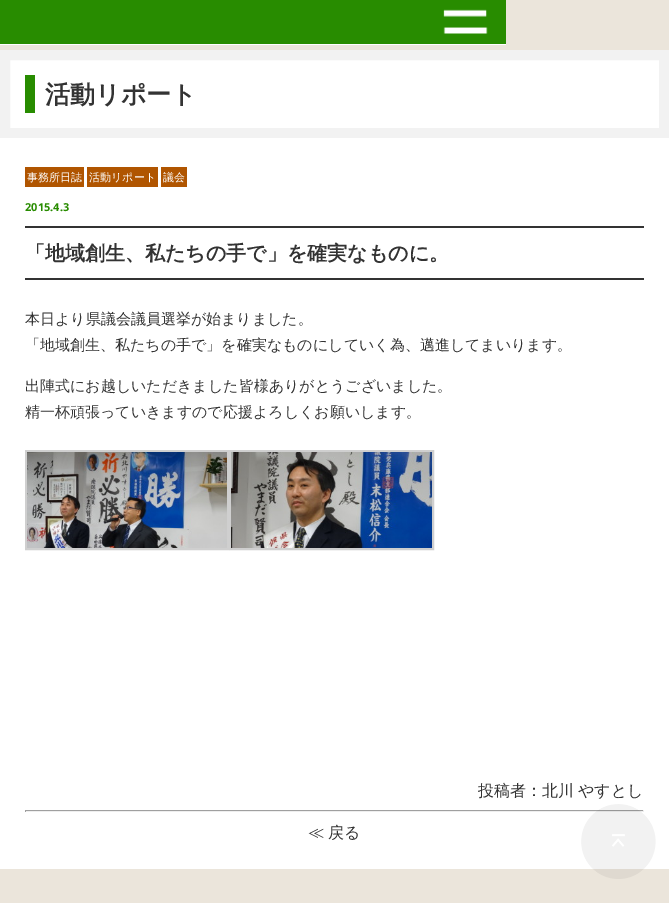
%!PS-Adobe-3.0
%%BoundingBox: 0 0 669 903
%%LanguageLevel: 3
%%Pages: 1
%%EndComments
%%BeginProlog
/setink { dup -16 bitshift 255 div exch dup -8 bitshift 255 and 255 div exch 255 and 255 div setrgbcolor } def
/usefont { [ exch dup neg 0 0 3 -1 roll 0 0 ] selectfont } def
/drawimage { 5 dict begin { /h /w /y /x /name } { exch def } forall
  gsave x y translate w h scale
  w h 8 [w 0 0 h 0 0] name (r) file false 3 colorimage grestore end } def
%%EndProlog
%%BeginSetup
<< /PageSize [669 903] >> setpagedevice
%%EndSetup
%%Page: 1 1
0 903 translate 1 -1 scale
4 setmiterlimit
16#EBE5DB setink
0 0 669 903 rectfill
16#288C00 setink
0 0 506 44 rectfill
16#FFFFFF setink
0 44 506 1 rectfill
(img1.raw) 443 9 45 25 drawimage
5 55 moveto 664 55 lineto 664 133 lineto 5 133 lineto closepath gsave fill grestore
16#F2F2F2 setink
10 setlinewidth
stroke
16#288C00 setink
25 75 10 38 rectfill
/WenQuanYiZenHei-Bold 25 usefont
16#333333 setink
45 103 moveto (活動リポート) show
16#FFFFFF setink
0 138 669 731 rectfill
16#B05500 setink
25 167 59 20 rectfill
/WenQuanYiZenHei-Medium 11 usefont
16#FFFFFF setink
27 181 moveto (事務所日誌) show
16#B05500 setink
87 167 71 20 rectfill
16#FFFFFF setink
89 181 moveto (活動リポート) show
16#B05500 setink
161 167 26 20 rectfill
16#FFFFFF setink
163 181 moveto (議会) show
/OpenSans-Bold 11 usefont
16#288C00 setink
25 211 moveto (2015.4.3) show
16#333333 setink
25 226 619 2 rectfill
25 278 619 2 rectfill
/WenQuanYiZenHei-Bold 20 usefont
25 260 moveto (「地域創生、私たちの手で」を確実なものに。) show
/WenQuanYiZenHei-Medium 15 usefont
[
    [(本日より県議会議員選挙が始まりました。) 25 324]
    [(「地域創生、私たちの手で」を確実なものにしていく為、邁進してまいります。) 25 350]
    [(出陣式にお越しいただきました皆様ありがとうございました。) 25 391]
    [(精一杯頑張っていきますので応援よろしくお願いします。) 25 417]
] { aload pop moveto show } forall
16#CFCFCF setink
2 setlinewidth
26 451 202 98 rectstroke
(img2.raw) 27 452 200 96 drawimage
230 451 203 98 rectstroke
(img3.raw) 231 452 201 96 drawimage
/WenQuanYiZenHei-Medium 16 usefont
16#333333 setink
478 796 moveto -1 0 32 (投稿者：北川 やすとし) widthshow
[
    [25 810 619 1 16#9F9F9F]
    [643 810 1 2 16#EEEEEE]
    [25 811 619 1 16#EEEEEE]
    [25 810 1 2 16#9F9F9F]
] { aload pop setink rectfill } forall
16#333333 setink
308 838 moveto -1 0 32 (≪ 戻る) widthshow
(img4.raw) 581 804 75 75 drawimage
showpage
%%EOF
